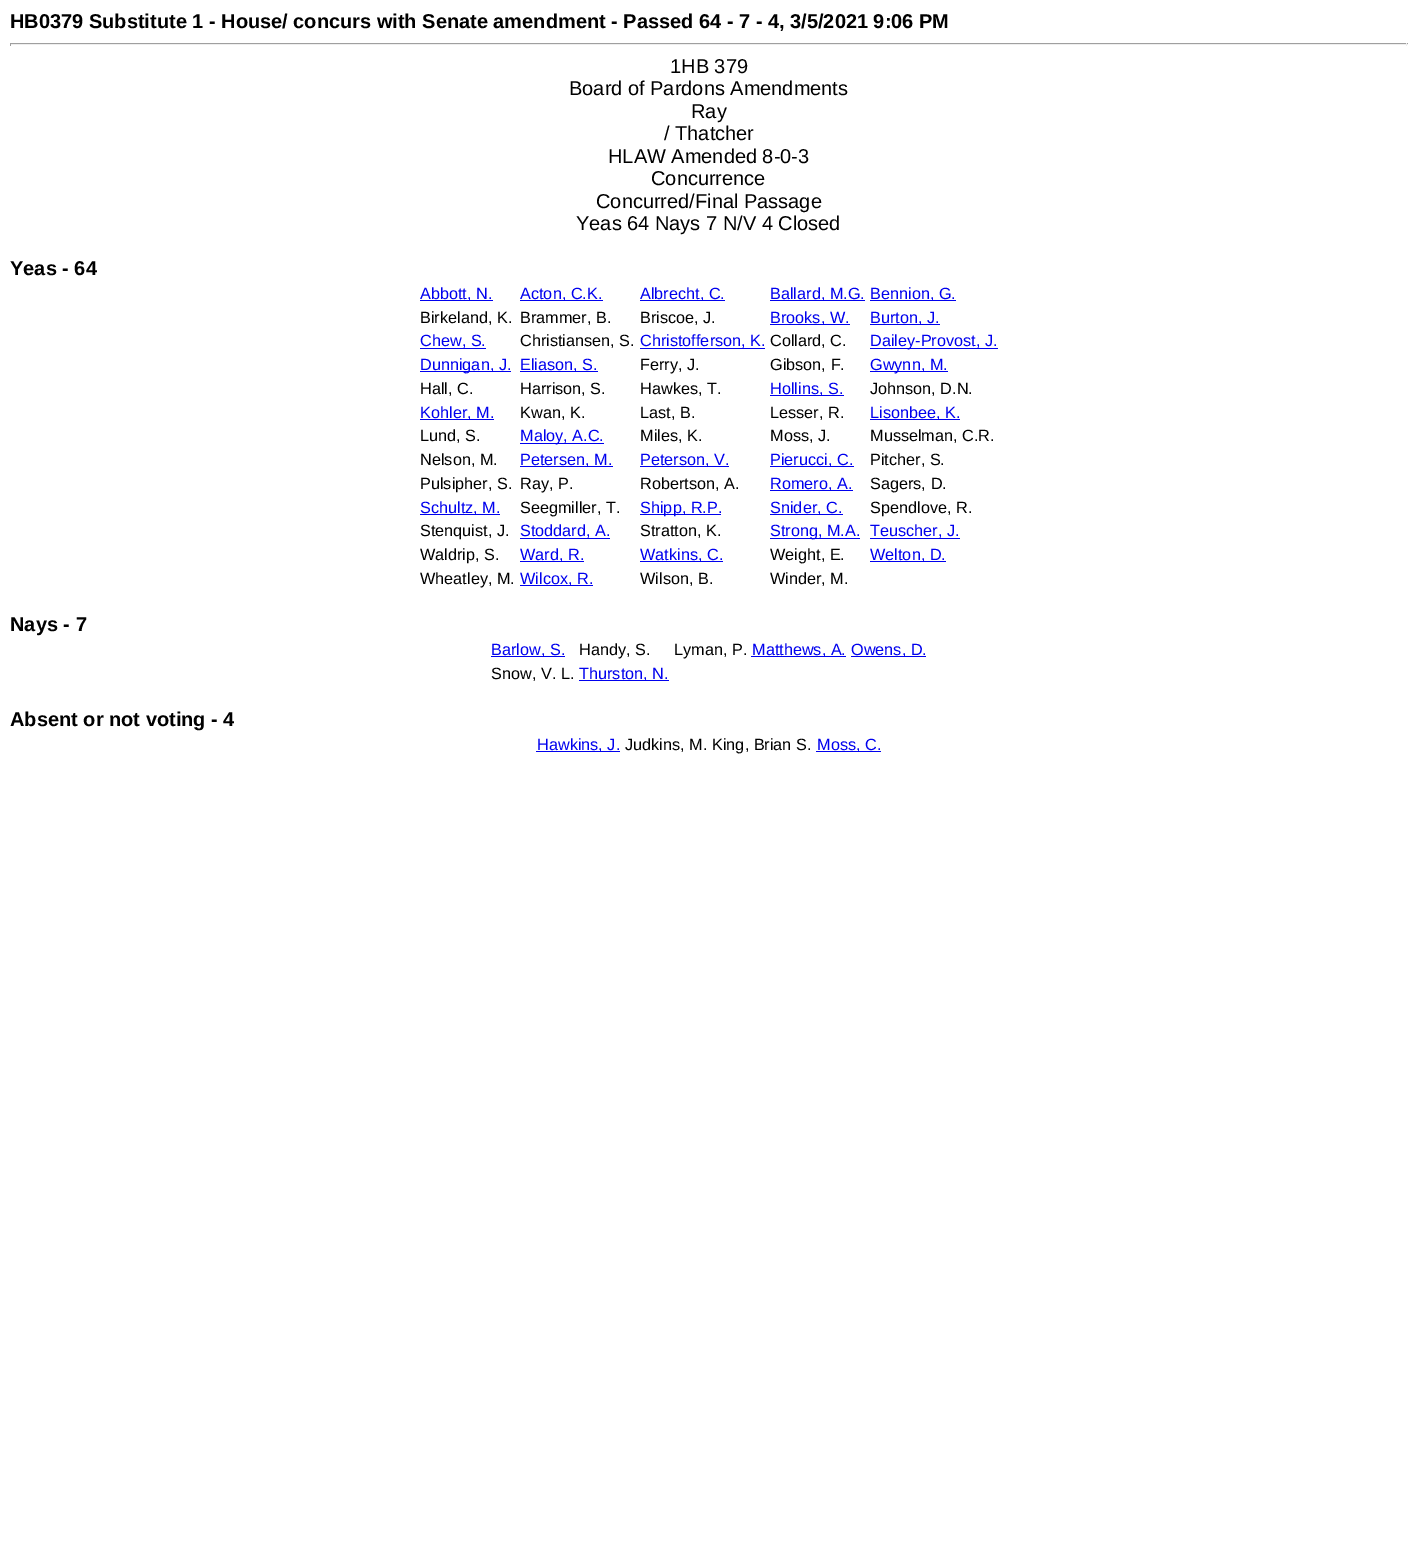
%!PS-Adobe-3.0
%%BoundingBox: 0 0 1417 1549
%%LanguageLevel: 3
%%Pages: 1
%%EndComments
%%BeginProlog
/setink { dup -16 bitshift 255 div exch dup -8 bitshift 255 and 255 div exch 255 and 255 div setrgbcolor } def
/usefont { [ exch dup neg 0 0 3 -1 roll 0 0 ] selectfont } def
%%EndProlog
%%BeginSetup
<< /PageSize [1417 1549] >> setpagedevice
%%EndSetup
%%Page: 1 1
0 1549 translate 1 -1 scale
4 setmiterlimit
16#FFFFFF setink
0 0 1417 1549 rectfill
/LiberationSans-Bold 20 usefont
16#000000 setink
10 28 moveto (HB0379 Substitute 1 - House/ concurs with Senate amendment - Passed 64 - 7 - 4, 3/5/2021 9:06 PM) show
[
    [10 43 1398 1 16#9F9F9F]
    [1406 43 1 3 16#EEEEEE]
    [10 44 1398 1 16#EEEEEE]
    [10 43 1 3 16#9F9F9F]
] { aload pop setink rectfill } forall
/LiberationSans-Regular 20 usefont
16#000000 setink
[
    [(1HB 379) 670 73]
    [(Board of Pardons Amendments) 569 95]
    [(Ray) 691 118]
    [(/ Thatcher) 664 140]
    [(HLAW Amended 8-0-3) 608 163]
    [(Concurrence) 651 185]
    [(Concurred/Final Passage) 596 208]
    [(Yeas 64 Nays 7 N/V 4 Closed) 576 230]
] { aload pop moveto show } forall
/LiberationSans-Bold 20 usefont
10 275 moveto (Yeas - 64) show
16#0000EE setink
420 300 73 1 rectfill
/LiberationSans-Regular 16.25 usefont
420 299 moveto (Abbott, N.) show
520 300 83 1 rectfill
520 299 moveto (Acton, C.K.) show
640 300 85 1 rectfill
640 299 moveto (Albrecht, C.) show
770 300 95 1 rectfill
770 299 moveto (Ballard, M.G.) show
870 300 86 1 rectfill
870 299 moveto (Bennion, G.) show
16#000000 setink
[
    [(Birkeland, K.) 420 323]
    [(Brammer, B.) 520 323]
    [(Briscoe, J.) 640 323]
] { aload pop moveto show } forall
16#0000EE setink
770 324 80 1 rectfill
770 323 moveto (Brooks, W.) show
870 324 70 1 rectfill
870 323 moveto (Burton, J.) show
420 348 66 1 rectfill
420 346 moveto (Chew, S.) show
16#000000 setink
520 346 moveto (Christiansen, S.) show
16#0000EE setink
640 348 125 1 rectfill
640 346 moveto (Christofferson, K.) show
16#000000 setink
770 346 moveto (Collard, C.) show
16#0000EE setink
870 348 128 1 rectfill
870 346 moveto (Dailey-Provost, J.) show
420 371 91 1 rectfill
420 370 moveto (Dunnigan, J.) show
520 371 78 1 rectfill
520 370 moveto (Eliason, S.) show
16#000000 setink
640 370 moveto (Ferry, J.) show
770 370 moveto (Gibson, F.) show
16#0000EE setink
870 371 78 1 rectfill
870 370 moveto (Gwynn, M.) show
16#000000 setink
[
    [(Hall, C.) 420 394]
    [(Harrison, S.) 520 394]
    [(Hawkes, T.) 640 394]
] { aload pop moveto show } forall
16#0000EE setink
770 395 74 1 rectfill
770 394 moveto (Hollins, S.) show
16#000000 setink
870 394 moveto (Johnson, D.N.) show
16#0000EE setink
420 419 74 1 rectfill
420 418 moveto (Kohler, M.) show
16#000000 setink
[
    [(Kwan, K.) 520 418]
    [(Last, B.) 640 418]
    [(Lesser, R.) 770 418]
] { aload pop moveto show } forall
16#0000EE setink
870 419 90 1 rectfill
870 418 moveto (Lisonbee, K.) show
16#000000 setink
420 441 moveto (Lund, S.) show
16#0000EE setink
520 443 84 1 rectfill
520 441 moveto (Maloy, A.C.) show
16#000000 setink
[
    [(Miles, K.) 640 441]
    [(Moss, J.) 770 441]
    [(Musselman, C.R.) 870 441]
    [(Nelson, M.) 420 465]
] { aload pop moveto show } forall
16#0000EE setink
520 466 93 1 rectfill
520 465 moveto (Petersen, M.) show
640 466 89 1 rectfill
640 465 moveto (Peterson, V.) show
770 466 84 1 rectfill
770 465 moveto (Pierucci, C.) show
16#000000 setink
[
    [(Pitcher, S.) 870 465]
    [(Pulsipher, S.) 420 489]
    [(Ray, P.) 520 489]
    [(Robertson, A.) 640 489]
] { aload pop moveto show } forall
16#0000EE setink
770 490 83 1 rectfill
770 489 moveto (Romero, A.) show
16#000000 setink
870 489 moveto (Sagers, D.) show
16#0000EE setink
420 514 80 1 rectfill
420 513 moveto (Schultz, M.) show
16#000000 setink
520 513 moveto (Seegmiller, T.) show
16#0000EE setink
640 514 81 1 rectfill
640 513 moveto (Shipp, R.P.) show
770 514 73 1 rectfill
770 513 moveto (Snider, C.) show
16#000000 setink
870 513 moveto (Spendlove, R.) show
420 536 moveto (Stenquist, J.) show
16#0000EE setink
520 538 90 1 rectfill
520 536 moveto (Stoddard, A.) show
16#000000 setink
640 536 moveto (Stratton, K.) show
16#0000EE setink
770 538 90 1 rectfill
770 536 moveto (Strong, M.A.) show
870 538 90 1 rectfill
870 536 moveto (Teuscher, J.) show
16#000000 setink
420 560 moveto (Waldrip, S.) show
16#0000EE setink
520 561 64 1 rectfill
520 560 moveto (Ward, R.) show
640 561 83 1 rectfill
640 560 moveto (Watkins, C.) show
16#000000 setink
770 560 moveto (Weight, E.) show
16#0000EE setink
870 561 76 1 rectfill
870 560 moveto (Welton, D.) show
16#000000 setink
420 584 moveto (Wheatley, M.) show
16#0000EE setink
520 585 73 1 rectfill
520 584 moveto (Wilcox, R.) show
16#000000 setink
640 584 moveto (Wilson, B.) show
770 584 moveto (Winder, M.) show
/LiberationSans-Bold 20 usefont
10 631 moveto (Nays - 7) show
16#0000EE setink
491 656 74 1 rectfill
/LiberationSans-Regular 16.25 usefont
491 655 moveto (Barlow, S.) show
16#000000 setink
579 655 moveto (Handy, S.) show
674 655 moveto (Lyman, P.) show
16#0000EE setink
751 656 95 1 rectfill
752 655 moveto (Matthews, A.) show
851 656 75 1 rectfill
851 655 moveto (Owens, D.) show
16#000000 setink
491 679 moveto (Snow, V. L.) show
16#0000EE setink
579 680 90 1 rectfill
579 679 moveto (Thurston, N.) show
/LiberationSans-Bold 20 usefont
16#000000 setink
10 726 moveto (Absent or not voting - 4) show
16#0000EE setink
536 751 84 1 rectfill
/LiberationSans-Regular 16.25 usefont
537 750 moveto (Hawkins, J.) show
16#000000 setink
625 750 moveto (Judkins, M.) show
712 750 moveto (King, Brian S.) show
16#0000EE setink
816 751 65 1 rectfill
817 750 moveto (Moss, C.) show
showpage
%%EOF
